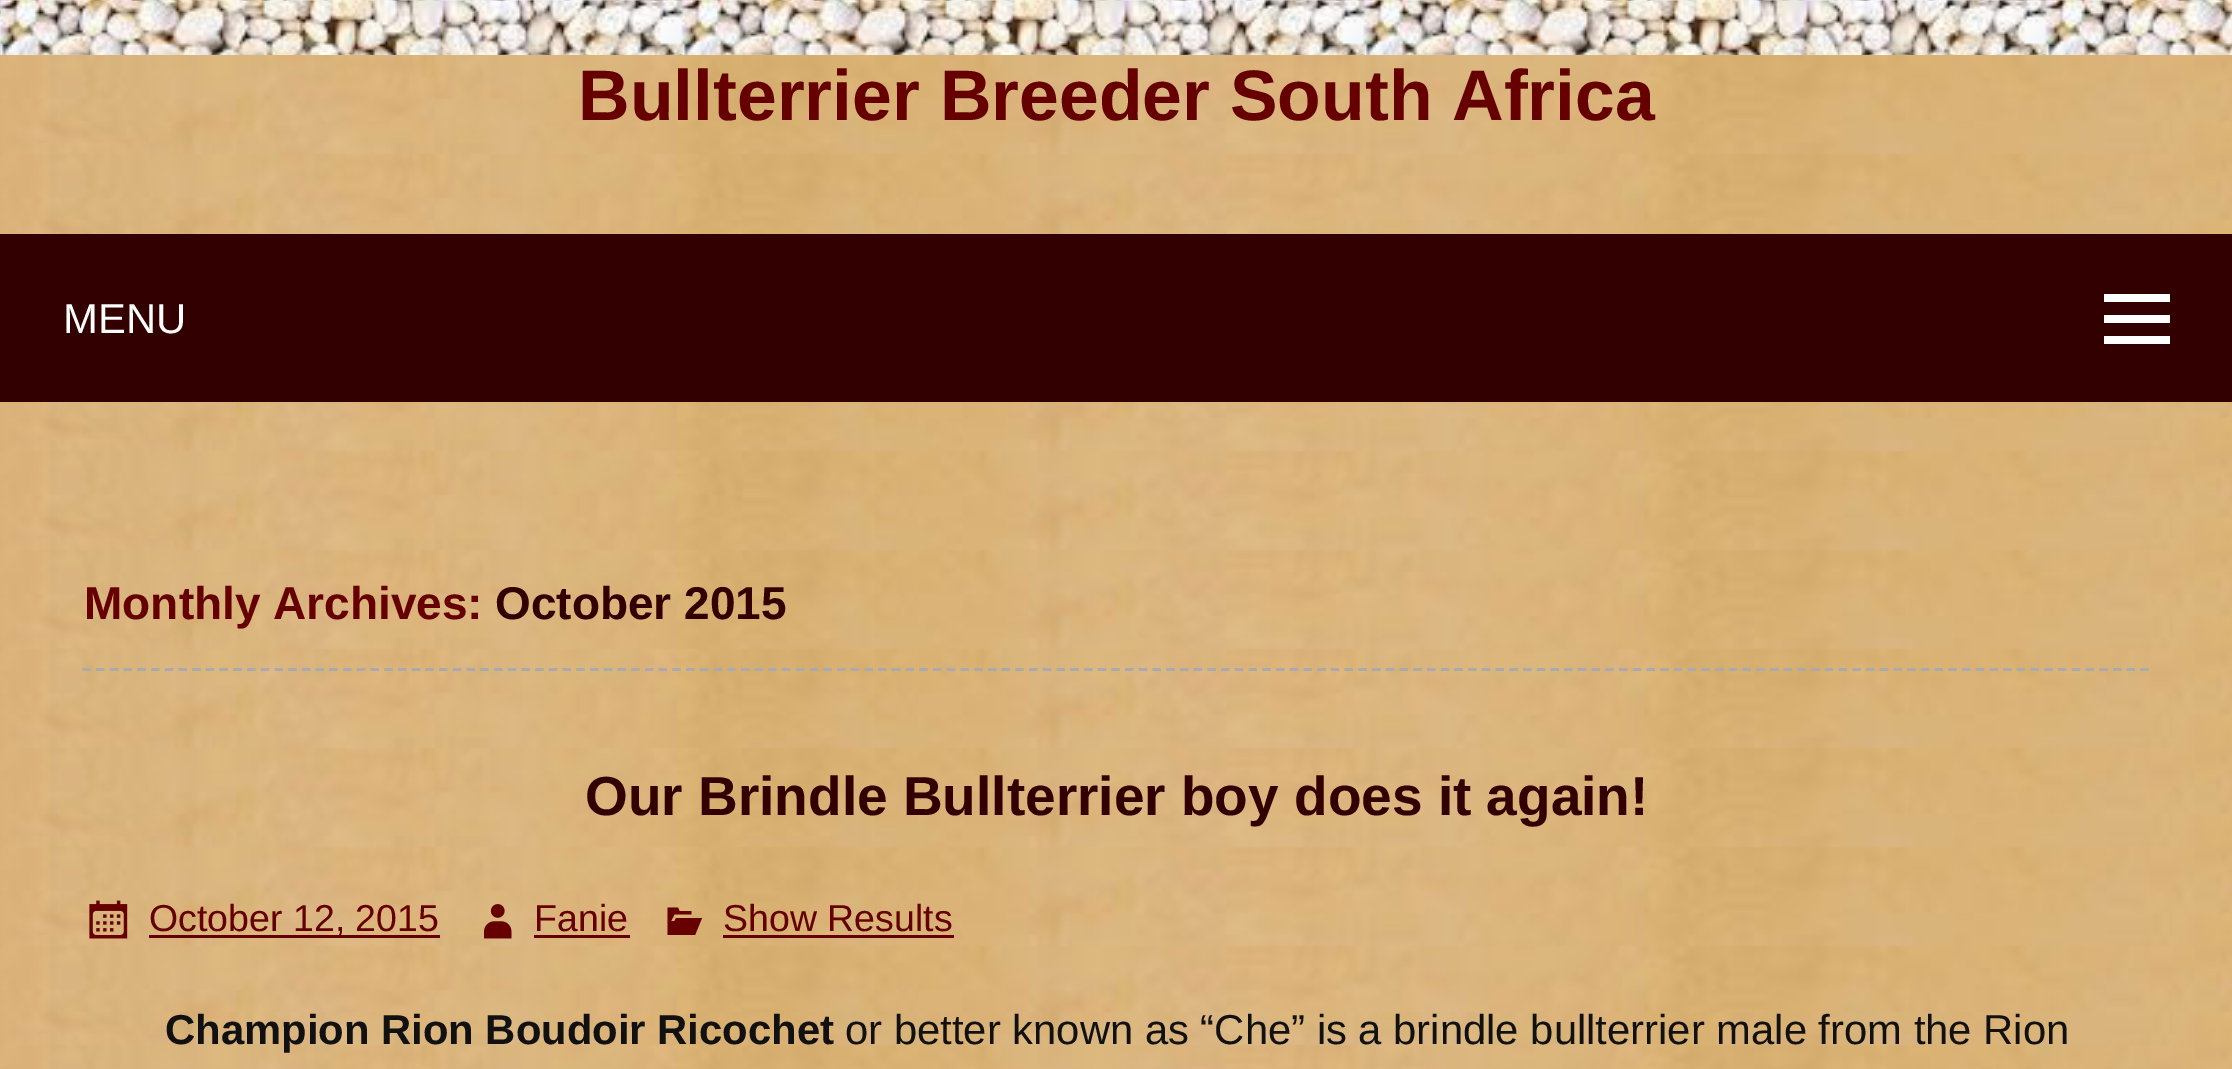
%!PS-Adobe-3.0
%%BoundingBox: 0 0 2232 1069
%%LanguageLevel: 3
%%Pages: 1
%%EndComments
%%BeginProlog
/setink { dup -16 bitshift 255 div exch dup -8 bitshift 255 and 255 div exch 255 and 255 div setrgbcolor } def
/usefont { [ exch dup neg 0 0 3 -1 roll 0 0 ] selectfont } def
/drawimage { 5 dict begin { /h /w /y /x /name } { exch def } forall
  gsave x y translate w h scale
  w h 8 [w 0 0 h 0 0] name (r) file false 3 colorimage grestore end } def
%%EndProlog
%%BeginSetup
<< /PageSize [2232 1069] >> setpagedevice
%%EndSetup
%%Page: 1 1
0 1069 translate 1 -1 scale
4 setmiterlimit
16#FFFFFF setink
0 0 2232 1069 rectfill
(img1.raw) 0 0 2232 55 drawimage
(img2.raw) 0 55 2232 1014 drawimage
/LiberationSans-Bold 71.5 usefont
16#660000 setink
578 120 moveto (Bullterrier Breeder South Africa) show
16#330000 setink
0 234 2232 168 rectfill
/LiberationSans-Regular 41.8 usefont
16#FFFFFF setink
63 333 moveto (MENU) show
2104 344 moveto 2104 336 lineto 2170 336 lineto 2170 344 lineto closepath 2104 294 moveto 2170 294 lineto 2170 302 lineto 2104 302 lineto closepath 2104 323 moveto 2104 315 lineto 2170 315 lineto 2170 323 lineto closepath fill
16#AAAAAA setink
2.8 setlinewidth
[8.25 5.47] 0 setdash
82.5 669.5 moveto 2150.5 669.5 lineto stroke
/LiberationSans-Bold 46 usefont
16#660000 setink
84 619 moveto (Monthly Archives:) show
16#330000 setink
495 619 moveto (October 2015) show
/LiberationSans-Bold 55 usefont
585 815 moveto (Our Brindle Bullterrier boy does it again!) show
(img3.raw) 89 900 39 39 drawimage
16#660000 setink
149 935 291 3 rectfill
/LiberationSans-Regular 37.5 usefont
149 931 moveto (October 12, 2015) show
(img4.raw) 484 904 28 35 drawimage
534 931 moveto (Fanie) show
534 935 96 3 rectfill
676 918 moveto 702 918 lineto 695 935 lineto 667.5 935 lineto 667.5 907.5 lineto 678 907.5 lineto 679.5 911 lineto 691.5 911 lineto 691.5 914.5 lineto 674.5 914.5 lineto 671 921 lineto 674.5 921 lineto closepath fill
723 931 moveto (Show Results) show
723 935 231 3 rectfill
/LiberationSans-Bold 41.8 usefont
16#111111 setink
165 1044 moveto (Champion Rion Boudoir Ricochet) show
/LiberationSans-Regular 41.8 usefont
845 1044 moveto (or better known as “Che” is a brindle bullterrier male from the Rion) show
showpage
%%EOF
